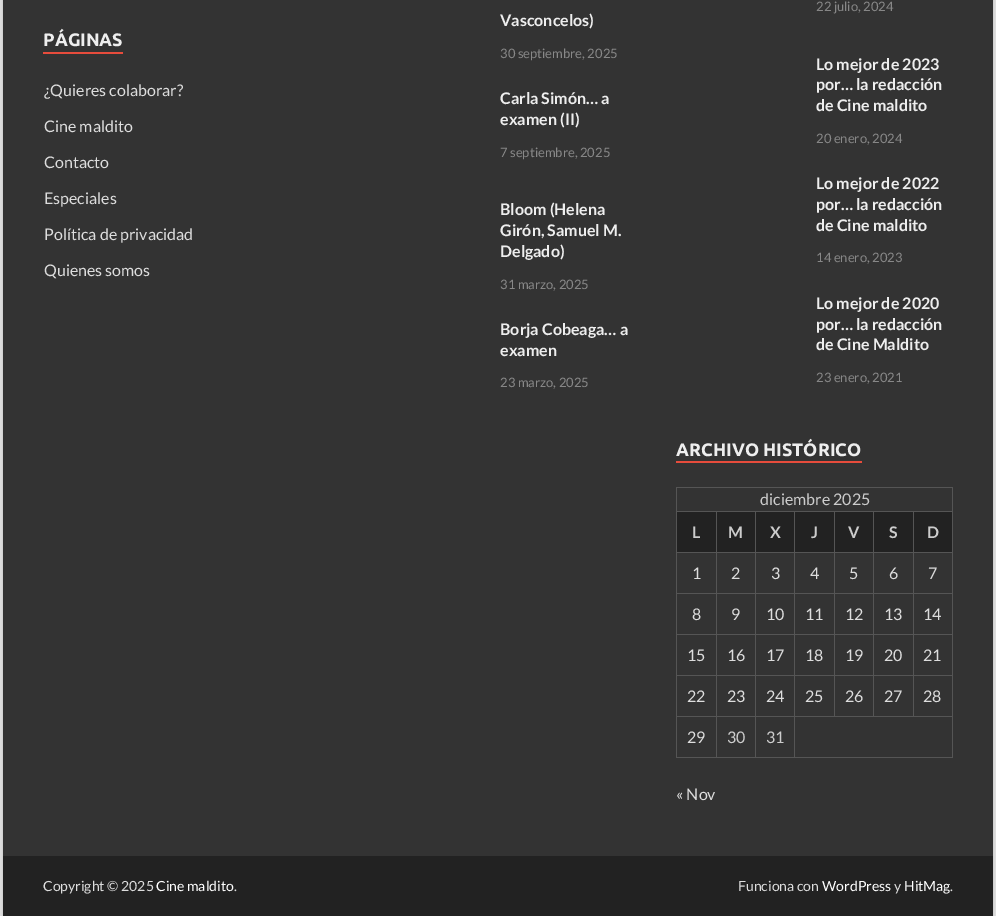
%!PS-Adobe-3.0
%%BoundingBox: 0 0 996 916
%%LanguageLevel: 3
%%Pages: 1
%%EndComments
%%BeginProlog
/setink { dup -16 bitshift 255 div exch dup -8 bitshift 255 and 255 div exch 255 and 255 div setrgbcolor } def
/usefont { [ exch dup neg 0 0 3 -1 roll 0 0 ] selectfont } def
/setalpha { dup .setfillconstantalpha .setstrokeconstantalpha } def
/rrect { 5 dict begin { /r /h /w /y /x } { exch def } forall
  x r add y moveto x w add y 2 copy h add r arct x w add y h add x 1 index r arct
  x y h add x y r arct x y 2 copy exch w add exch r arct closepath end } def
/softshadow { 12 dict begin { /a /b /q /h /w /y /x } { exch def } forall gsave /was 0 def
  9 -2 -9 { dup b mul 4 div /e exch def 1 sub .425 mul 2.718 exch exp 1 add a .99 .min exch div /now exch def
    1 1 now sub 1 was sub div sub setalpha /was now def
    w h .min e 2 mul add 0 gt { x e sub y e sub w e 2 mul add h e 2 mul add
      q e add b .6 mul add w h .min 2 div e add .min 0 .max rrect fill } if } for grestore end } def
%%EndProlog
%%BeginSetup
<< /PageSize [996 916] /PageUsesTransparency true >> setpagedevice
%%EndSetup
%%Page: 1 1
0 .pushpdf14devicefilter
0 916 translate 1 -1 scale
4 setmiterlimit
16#DDDDDD setink
0 0 996 916 rectfill
16#BBBBBB setink
3 -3 990 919 0 1 1 softshadow
16#333333 setink
3 0 990 856 rectfill
16#E74C3C setink
43 52 80 2 rectfill
/Ubuntu-Bold 18 usefont
16#EEEEEE setink
43 46 moveto (PÁGINAS) show
/Lato-Regular 16 usefont
16#DDDDDD setink
[
    [(¿Quieres colaborar?) 44 96]
    [(Cine maldito) 44 132]
    [(Contacto) 44 168]
    [(Especiales) 44 204]
    [(Política de privacidad) 44 240]
    [(Quienes somos) 44 276]
] { aload pop moveto show } forall
/Lato-Bold 16 usefont
16#EEEEEE setink
500 26 moveto (Vasconcelos\)) show
/Lato-Regular 13 usefont
16#888888 setink
500 58 moveto (30 septiembre, 2025) show
/Lato-Bold 16 usefont
16#EEEEEE setink
500 104 moveto (Carla Simón… a) show
500 125 moveto (examen \(II\)) show
/Lato-Regular 13 usefont
16#888888 setink
500 157 moveto (7 septiembre, 2025) show
/Lato-Bold 16 usefont
16#EEEEEE setink
[
    [(Bloom \(Helena) 500 215]
    [(Girón, Samuel M.) 500 236]
    [(Delgado\)) 500 257]
] { aload pop moveto show } forall
/Lato-Regular 13 usefont
16#888888 setink
500 289 moveto (31 marzo, 2025) show
/Lato-Bold 16 usefont
16#EEEEEE setink
500 335 moveto (Borja Cobeaga… a) show
500 356 moveto (examen) show
/Lato-Regular 13 usefont
16#888888 setink
500 387 moveto (23 marzo, 2025) show
816 11 moveto (22 julio, 2024) show
/Lato-Bold 16 usefont
16#EEEEEE setink
[
    [(Lo mejor de 2023) 816 70]
    [(por… la redacción) 816 90]
    [(de Cine maldito) 816 111]
] { aload pop moveto show } forall
/Lato-Regular 13 usefont
16#888888 setink
816 143 moveto (20 enero, 2024) show
/Lato-Bold 16 usefont
16#EEEEEE setink
[
    [(Lo mejor de 2022) 816 189]
    [(por… la redacción) 816 210]
    [(de Cine maldito) 816 231]
] { aload pop moveto show } forall
/Lato-Regular 13 usefont
16#888888 setink
816 262 moveto (14 enero, 2023) show
/Lato-Bold 16 usefont
16#EEEEEE setink
[
    [(Lo mejor de 2020) 816 309]
    [(por… la redacción) 816 330]
    [(de Cine Maldito) 816 350]
] { aload pop moveto show } forall
/Lato-Regular 13 usefont
16#888888 setink
816 382 moveto (23 enero, 2021) show
16#E74C3C setink
676 461 186 2 rectfill
/Ubuntu-Bold 18 usefont
16#EEEEEE setink
676 456 moveto (ARCHIVO HISTÓRICO) show
[
    [676 487 277 1 16#555555]
    [952 487 1 271 16#555555]
    [676 757 277 1 16#555555]
    [676 487 1 271 16#555555]
] { aload pop setink rectfill } forall
/Lato-Regular 16 usefont
16#CCCCCC setink
760 505 moveto (diciembre 2025) show
[
    [677 512 39 40 16#222222]
    [913 511 40 1 16#555555]
    [913 552 40 1 16#555555]
    [913 593 40 1 16#555555]
    [913 634 40 1 16#555555]
    [913 675 40 1 16#555555]
    [794 716 159 1 16#555555]
    [913 675 1 42 16#555555]
    [873 675 41 1 16#555555]
    [913 634 1 42 16#555555]
    [873 634 41 1 16#555555]
    [913 593 1 42 16#555555]
    [873 593 41 1 16#555555]
    [913 552 1 42 16#555555]
    [873 552 41 1 16#555555]
    [913 511 1 42 16#555555]
    [873 511 41 1 16#555555]
    [873 675 1 42 16#555555]
    [834 675 40 1 16#555555]
    [873 634 1 42 16#555555]
    [834 634 40 1 16#555555]
    [873 593 1 42 16#555555]
    [834 593 40 1 16#555555]
    [873 552 1 42 16#555555]
    [834 552 40 1 16#555555]
    [873 511 1 42 16#555555]
    [834 511 40 1 16#555555]
    [834 675 1 42 16#555555]
    [794 675 41 1 16#555555]
    [834 634 1 42 16#555555]
    [794 634 41 1 16#555555]
    [834 593 1 42 16#555555]
    [794 593 41 1 16#555555]
    [834 552 1 42 16#555555]
    [794 552 41 1 16#555555]
    [834 511 1 42 16#555555]
    [794 511 41 1 16#555555]
    [794 716 1 42 16#555555]
    [755 716 40 1 16#555555]
    [794 675 1 42 16#555555]
    [755 675 40 1 16#555555]
    [794 634 1 42 16#555555]
    [755 634 40 1 16#555555]
    [794 593 1 42 16#555555]
    [755 593 40 1 16#555555]
    [794 552 1 42 16#555555]
    [755 552 40 1 16#555555]
    [794 511 1 42 16#555555]
    [755 511 40 1 16#555555]
    [755 716 1 42 16#555555]
    [716 716 40 1 16#555555]
    [755 675 1 42 16#555555]
    [716 675 40 1 16#555555]
    [755 634 1 42 16#555555]
    [716 634 40 1 16#555555]
    [755 593 1 42 16#555555]
    [716 593 40 1 16#555555]
    [755 552 1 42 16#555555]
    [716 552 40 1 16#555555]
    [755 511 1 42 16#555555]
    [716 511 40 1 16#555555]
    [716 716 1 42 16#555555]
    [676 716 41 1 16#555555]
    [716 675 1 42 16#555555]
    [676 675 41 1 16#555555]
    [716 634 1 42 16#555555]
    [676 634 41 1 16#555555]
    [716 593 1 42 16#555555]
    [676 593 41 1 16#555555]
    [716 552 1 42 16#555555]
    [676 552 41 1 16#555555]
    [716 511 1 42 16#555555]
    [676 511 41 1 16#555555]
] { aload pop setink rectfill } forall
/Lato-Bold 16 usefont
16#CCCCCC setink
692 538 moveto (L) show
16#222222 setink
717 512 38 40 rectfill
16#CCCCCC setink
728 538 moveto (M) show
16#222222 setink
756 512 38 40 rectfill
16#CCCCCC setink
770 538 moveto (X) show
16#222222 setink
795 512 39 40 rectfill
16#CCCCCC setink
811 538 moveto (J) show
16#222222 setink
835 512 38 40 rectfill
16#CCCCCC setink
848 538 moveto (V) show
16#222222 setink
874 512 39 40 rectfill
16#CCCCCC setink
889 538 moveto (S) show
16#222222 setink
914 512 38 40 rectfill
16#CCCCCC setink
927 538 moveto (D) show
/Lato-Regular 16 usefont
16#DDDDDD setink
[
    [(1) 692 579]
    [(2) 731 579]
    [(3) 771 579]
    [(4) 810 579]
    [(5) 849 579]
    [(6) 889 579]
    [(7) 928 579]
    [(8) 692 620]
    [(9) 731 620]
    [(10) 766 620]
    [(11) 805 620]
    [(12) 845 620]
    [(13) 884 620]
    [(14) 923 620]
    [(15) 687 661]
    [(16) 727 661]
    [(17) 766 661]
    [(18) 805 661]
    [(19) 845 661]
    [(20) 884 661]
    [(21) 923 661]
    [(22) 687 702]
    [(23) 727 702]
    [(24) 766 702]
    [(25) 805 702]
    [(26) 845 702]
    [(27) 884 702]
    [(28) 923 702]
    [(29) 687 743]
] { aload pop moveto show } forall
16#CCCCCC setink
727 743 moveto (30) show
766 743 moveto (31) show
16#DDDDDD setink
676 800 moveto (« Nov) show
16#222222 setink
3 856 990 60 rectfill
/Lato-Regular 14 usefont
16#DDDDDD setink
43 891 moveto (Copyright © 2025) show
16#FFFFFF setink
156 891 moveto (Cine maldito) show
16#DDDDDD setink
234 891 moveto (.) show
738 891 moveto (Funciona con) show
16#FFFFFF setink
822 891 moveto (WordPress) show
16#DDDDDD setink
894 891 moveto (y) show
16#FFFFFF setink
904 891 moveto (HitMag) show
16#DDDDDD setink
950 891 moveto (.) show
.poppdf14devicefilter showpage
%%EOF
